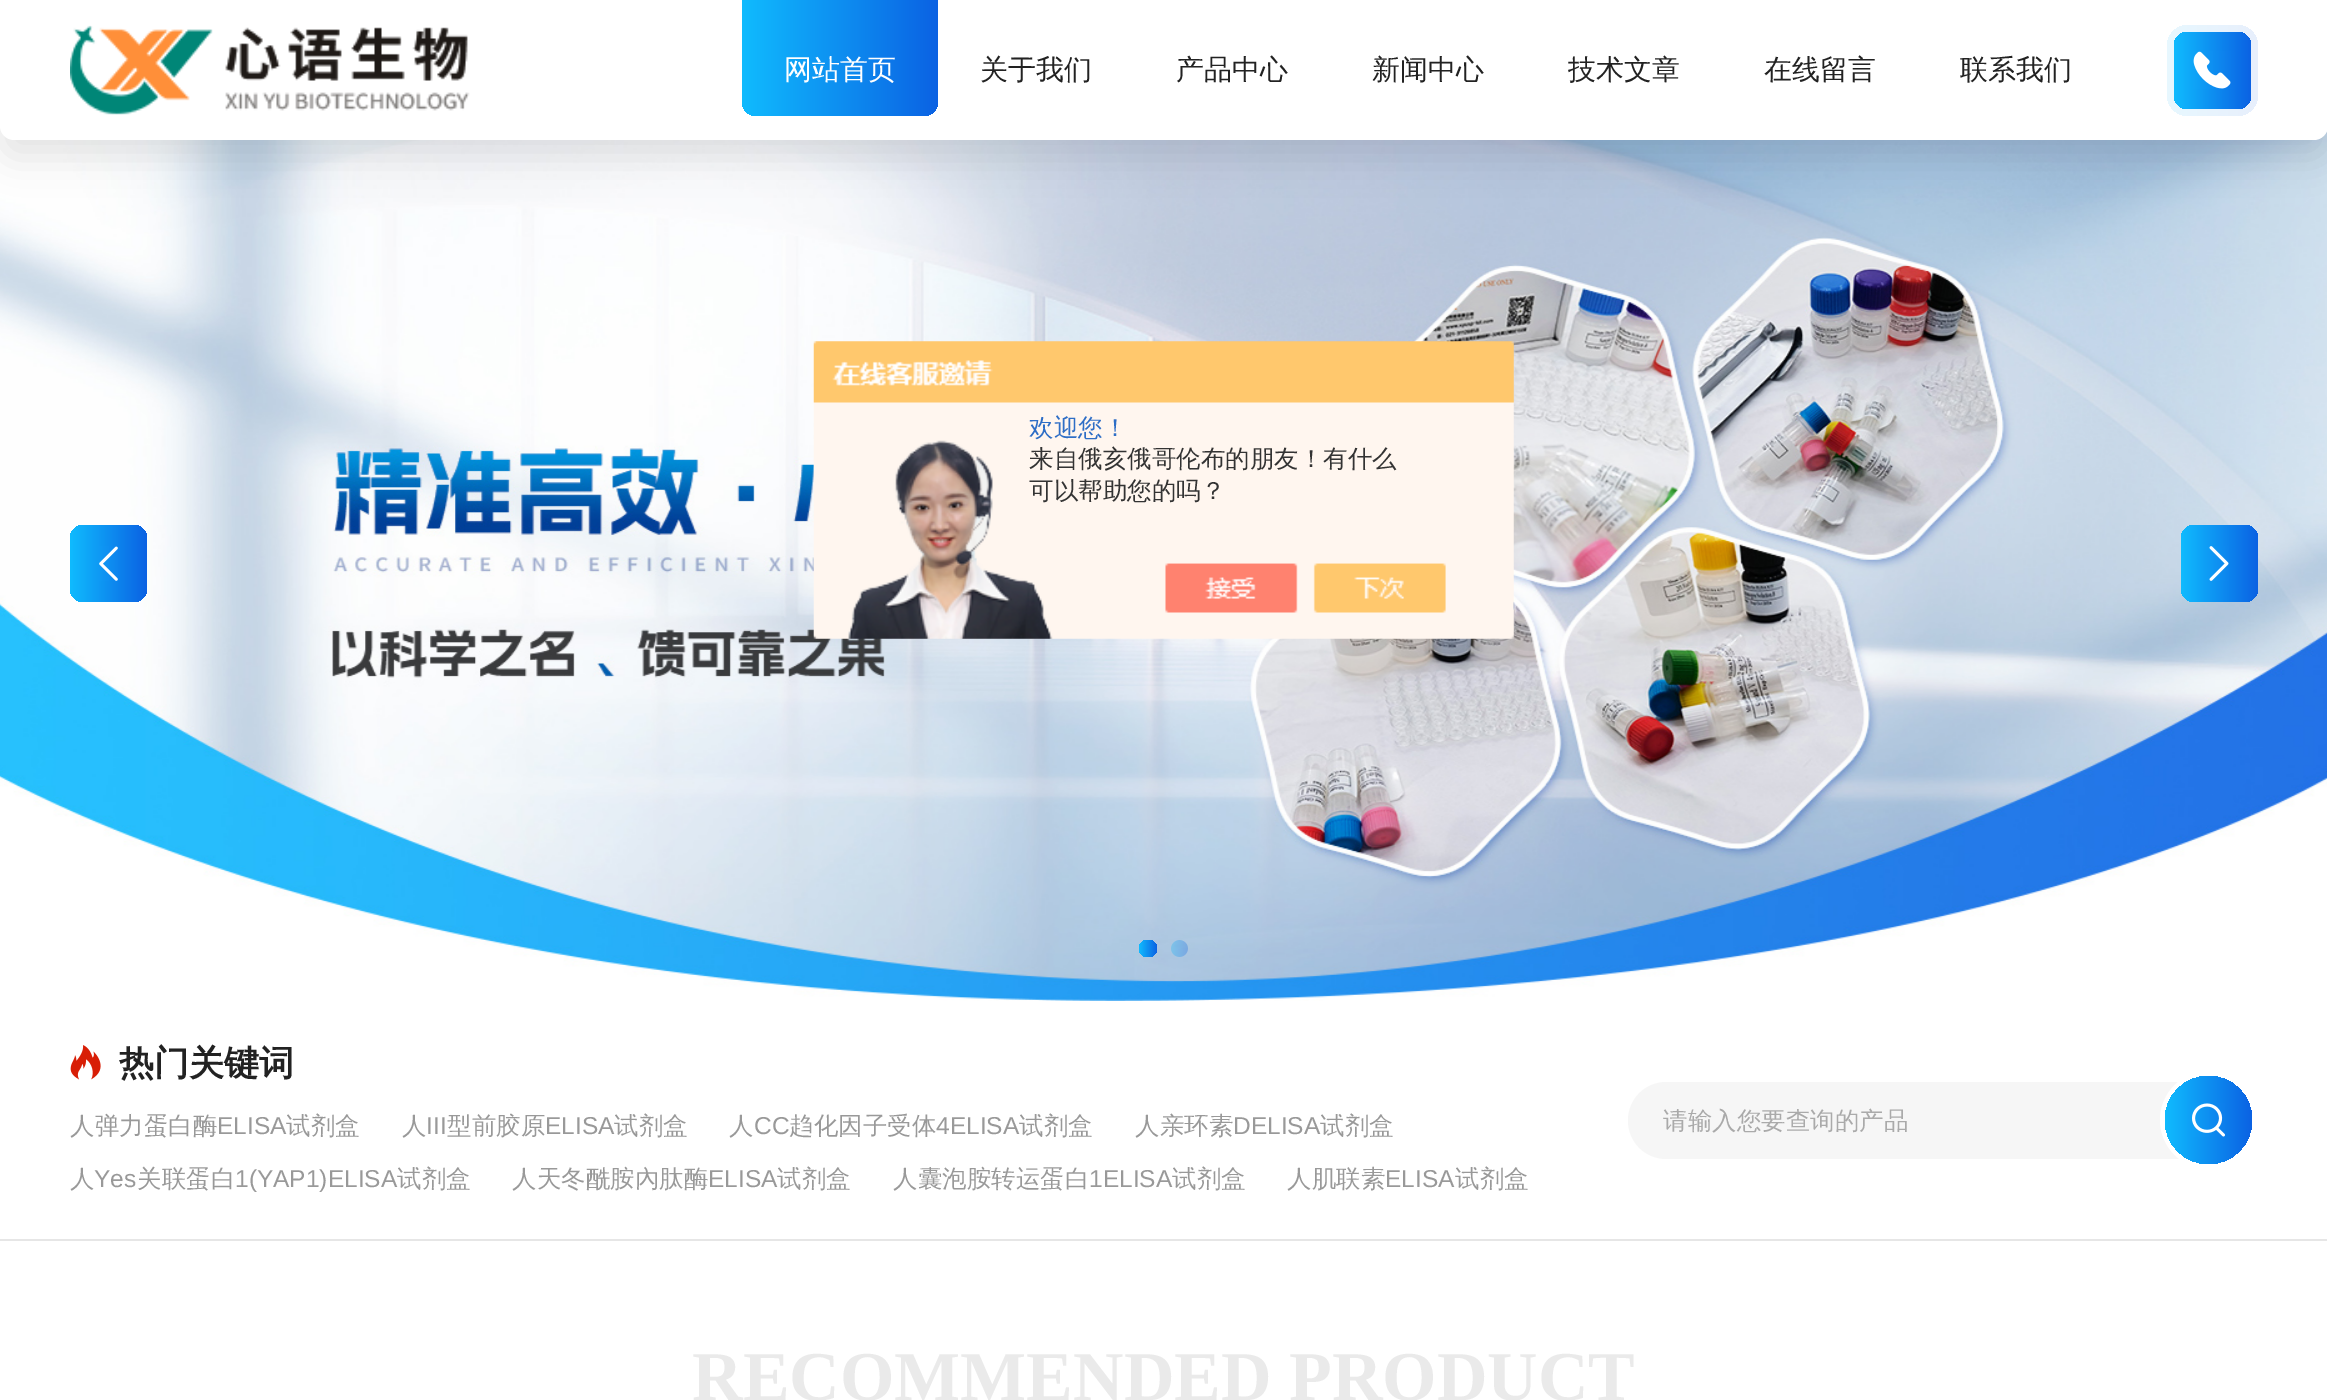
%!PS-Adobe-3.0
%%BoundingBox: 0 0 2327 1400
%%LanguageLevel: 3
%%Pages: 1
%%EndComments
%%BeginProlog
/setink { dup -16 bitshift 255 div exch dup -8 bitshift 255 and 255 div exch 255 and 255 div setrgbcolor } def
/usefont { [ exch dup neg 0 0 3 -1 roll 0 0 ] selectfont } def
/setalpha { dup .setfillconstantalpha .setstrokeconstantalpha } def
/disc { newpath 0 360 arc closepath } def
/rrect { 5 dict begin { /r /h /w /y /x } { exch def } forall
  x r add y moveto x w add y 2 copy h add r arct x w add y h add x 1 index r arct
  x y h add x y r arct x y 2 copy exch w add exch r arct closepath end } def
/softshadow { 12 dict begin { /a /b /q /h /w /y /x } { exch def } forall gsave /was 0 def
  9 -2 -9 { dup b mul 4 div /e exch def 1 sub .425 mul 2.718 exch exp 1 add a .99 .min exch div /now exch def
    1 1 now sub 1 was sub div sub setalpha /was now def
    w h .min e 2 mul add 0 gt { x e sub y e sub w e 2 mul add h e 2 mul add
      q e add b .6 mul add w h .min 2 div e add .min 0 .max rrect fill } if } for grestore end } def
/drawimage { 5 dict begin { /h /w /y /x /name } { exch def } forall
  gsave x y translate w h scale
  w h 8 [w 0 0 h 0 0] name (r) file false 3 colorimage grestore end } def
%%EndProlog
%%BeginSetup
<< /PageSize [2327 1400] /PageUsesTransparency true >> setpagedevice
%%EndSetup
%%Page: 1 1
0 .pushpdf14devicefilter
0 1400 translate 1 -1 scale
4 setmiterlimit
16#FFFFFF setink
0 0 2327 1400 rectfill
(img3.raw) 0 126 2327 875 drawimage
16#000000 setink
0 18 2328 140 14 17.5 0.1 softshadow
16#FFFFFF setink
0 0 moveto 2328 0 lineto 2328 126 lineto 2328 133.5 2321.5 140 2314 140 curveto 14 140 lineto 6.5 140 0 133.5 0 126 curveto closepath fill
(img1.raw) 70 25 400 90 drawimage
gsave 742 0 moveto 938 0 lineto 938 102 lineto 938 109.5 931.5 116 924 116 curveto 756 116 lineto 748.5 116 742 109.5 742 102 curveto closepath clip newpath
<< /ShadingType 2 /ColorSpace /DeviceRGB /Coords [742 58 938 58] /Extend [true true] /Function << /FunctionType 2 /Domain [0 1] /C0 [0.063 0.733 0.996] /C1 [0.043 0.384 0.89] /N 1 >> >> shfill grestore
/WenQuanYiZenHei-Medium 28 usefont
784 79 moveto (网站首页) show
16#222222 setink
[
    [(关于我们) 980 79]
    [(产品中心) 1176 79]
    [(新闻中心) 1372 79]
    [(技术文章) 1568 79]
    [(在线留言) 1764 79]
    [(联系我们) 1960 79]
] { aload pop moveto show } forall
gsave 2167 25 91 91 21 rrect clip newpath
<< /ShadingType 2 /ColorSpace /DeviceRGB /Coords [2167 70 2258 70] /Extend [true true] /Function << /FunctionType 2 /Domain [0 1] /C0 [0.906 0.973 1] /C1 [0.906 0.937 0.988] /N 1 >> >> shfill grestore
gsave 2174 32 77 77 14 rrect clip newpath
<< /ShadingType 2 /ColorSpace /DeviceRGB /Coords [2174 70 2251 70] /Extend [true true] /Function << /FunctionType 2 /Domain [0 1] /C0 [0.063 0.733 0.996] /C1 [0.043 0.384 0.89] /N 1 >> >> shfill grestore
(img2.raw) 2193 51 38 38 drawimage
gsave 70 525 77 77 14 rrect clip newpath
<< /ShadingType 2 /ColorSpace /DeviceRGB /Coords [70 564 147 564] /Extend [true true] /Function << /FunctionType 2 /Domain [0 1] /C0 [0.063 0.733 0.996] /C1 [0.043 0.384 0.89] /N 1 >> >> shfill grestore
(img4.raw) 99 546 19 35 drawimage
gsave 2181 525 77 77 14 rrect clip newpath
<< /ShadingType 2 /ColorSpace /DeviceRGB /Coords [2181 564 2258 564] /Extend [true true] /Function << /FunctionType 2 /Domain [0 1] /C0 [0.063 0.733 0.996] /C1 [0.043 0.384 0.89] /N 1 >> >> shfill grestore
(img5.raw) 2209 546 20 35 drawimage
gsave 1139 940 18 17 8.5 rrect clip newpath
<< /ShadingType 2 /ColorSpace /DeviceRGB /Coords [1139 949 1157 949] /Extend [true true] /Function << /FunctionType 2 /Domain [0 1] /C0 [0.063 0.733 0.996] /C1 [0.043 0.384 0.89] /N 1 >> >> shfill grestore
(img6.raw) 813 341 701 298 drawimage
/WenQuanYiZenHei-Medium 24.5 usefont
16#2E6EC6 setink
1029 436 moveto (欢迎您！) show
16#333333 setink
1029 467 moveto (来自俄亥俄哥伦布的朋友！有什么) show
1029 499 moveto (可以帮助您的吗？) show
16#E6E6E6 setink
0 1239 2327 2 rectfill
(img7.raw) 70 1045 31 35 drawimage
/WenQuanYiZenHei-Bold 35 usefont
16#222222 setink
119 1075 moveto (热门关键词) show
/WenQuanYiZenHei-Medium 24.5 usefont
16#999999 setink
70 1134 moveto (人弹力蛋白酶) show
/LiberationSans-Regular 24.5 usefont
217 1134 moveto (ELISA) show
/WenQuanYiZenHei-Medium 24.5 usefont
286 1134 moveto (试剂盒) show
402 1134 moveto (人) show
/LiberationSans-Regular 24.5 usefont
426 1134 moveto (III) show
/WenQuanYiZenHei-Medium 24.5 usefont
447 1134 moveto (型前胶原) show
/LiberationSans-Regular 24.5 usefont
545 1134 moveto (ELISA) show
/WenQuanYiZenHei-Medium 24.5 usefont
614 1134 moveto (试剂盒) show
729 1134 moveto (人) show
/LiberationSans-Regular 24.5 usefont
754 1134 moveto (CC) show
/WenQuanYiZenHei-Medium 24.5 usefont
789 1134 moveto (趋化因子受体) show
/LiberationSans-Regular 24.5 usefont
936 1134 moveto (4ELISA) show
/WenQuanYiZenHei-Medium 24.5 usefont
1019 1134 moveto (试剂盒) show
1135 1134 moveto (人亲环素) show
/LiberationSans-Regular 24.5 usefont
1233 1134 moveto (DELISA) show
/WenQuanYiZenHei-Medium 24.5 usefont
1320 1134 moveto (试剂盒) show
70 1187 moveto (人) show
/LiberationSans-Regular 24.5 usefont
94 1187 moveto (Yes) show
/WenQuanYiZenHei-Medium 24.5 usefont
137 1187 moveto (关联蛋白) show
/LiberationSans-Regular 24.5 usefont
235 1187 moveto (1\(YAP1\)ELISA) show
/WenQuanYiZenHei-Medium 24.5 usefont
397 1187 moveto (试剂盒) show
512 1187 moveto (人天冬酰胺內肽酶) show
/LiberationSans-Regular 24.5 usefont
708 1187 moveto (ELISA) show
/WenQuanYiZenHei-Medium 24.5 usefont
777 1187 moveto (试剂盒) show
893 1187 moveto (人囊泡胺转运蛋白) show
/LiberationSans-Regular 24.5 usefont
1089 1187 moveto (1ELISA) show
/WenQuanYiZenHei-Medium 24.5 usefont
1172 1187 moveto (试剂盒) show
1287 1187 moveto (人肌联素) show
/LiberationSans-Regular 24.5 usefont
1385 1187 moveto (ELISA) show
/WenQuanYiZenHei-Medium 24.5 usefont
1455 1187 moveto (试剂盒) show
16#F6F6F6 setink
1666.5 1082 moveto 2188 1082 lineto 2188 1159 lineto 1666.5 1159 lineto 1645 1159 1628 1142 1628 1120.5 curveto 1628 1099 1645 1082 1666.5 1082 curveto closepath fill
16#AAAAAA setink
1663 1129 moveto (请输入您要查询的产品) show
16#FFFFFF setink
2209 1120 49 disc fill
gsave 2165 1076 87 88 43.5 rrect clip newpath
<< /ShadingType 2 /ColorSpace /DeviceRGB /Coords [2165 1120 2252 1120] /Extend [true true] /Function << /FunctionType 2 /Domain [0 1] /C0 [0.063 0.733 0.996] /C1 [0.043 0.384 0.89] /N 1 >> >> shfill grestore
(img8.raw) 2192 1103 33 34 drawimage
/LiberationSerif-Bold 70 usefont
16#EAEAEA setink
692 1400 moveto (RECOMMENDED PRODUCT) show
.poppdf14devicefilter showpage
%%EOF
